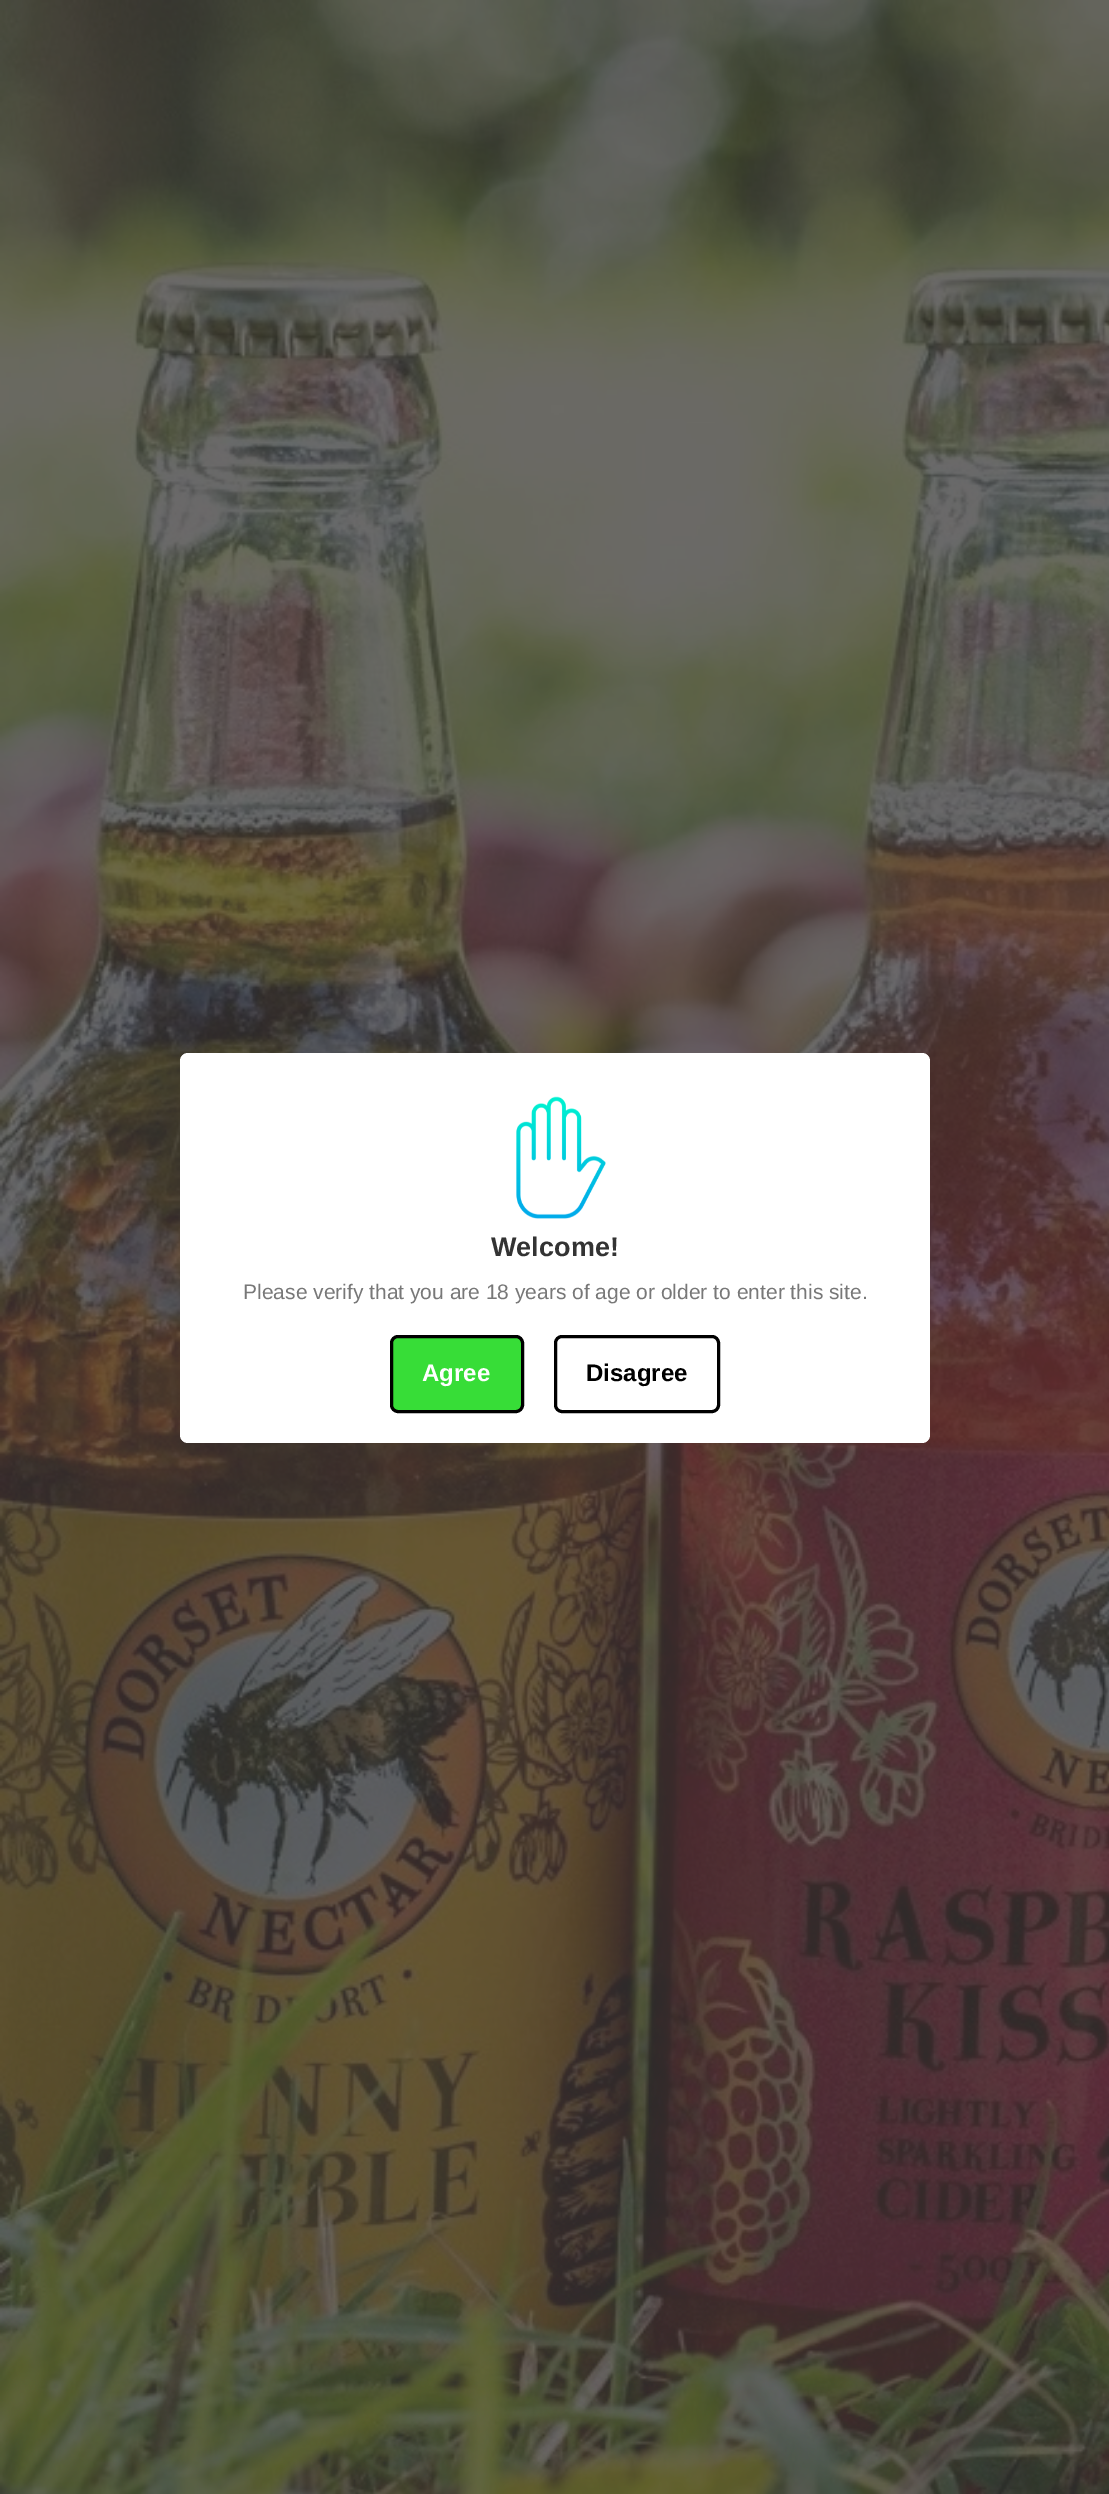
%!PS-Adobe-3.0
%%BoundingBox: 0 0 1109 2494
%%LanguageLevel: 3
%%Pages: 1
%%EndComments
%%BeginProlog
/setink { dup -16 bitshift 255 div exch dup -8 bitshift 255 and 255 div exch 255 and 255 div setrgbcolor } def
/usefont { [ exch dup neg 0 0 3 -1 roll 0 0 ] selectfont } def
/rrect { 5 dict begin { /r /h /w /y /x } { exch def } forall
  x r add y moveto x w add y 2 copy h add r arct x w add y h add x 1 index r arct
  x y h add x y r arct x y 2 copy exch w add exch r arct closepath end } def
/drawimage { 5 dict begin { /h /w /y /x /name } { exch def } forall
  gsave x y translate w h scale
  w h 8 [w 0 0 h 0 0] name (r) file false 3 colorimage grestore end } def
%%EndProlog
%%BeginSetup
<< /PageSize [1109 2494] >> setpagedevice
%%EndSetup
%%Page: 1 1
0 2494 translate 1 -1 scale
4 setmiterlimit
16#FFFFFF setink
0 0 1109 2494 rectfill
(img1.raw) 0 0 1109 2494 drawimage
180 1053 750 390 8 rrect fill
(img2.raw) 516 1096 90 123 drawimage
/LiberationSans-Bold 27 usefont
16#333333 setink
491 1256 moveto (Welcome!) show
/LiberationSans-Regular 21 usefont
16#787878 setink
243 1299 moveto (Please verify that you are 18 years of age or older to enter this site.) show
16#37DD37 setink
391.5 1336.5 131 75 6.5 rrect gsave fill grestore
16#000000 setink
3 setlinewidth
stroke
/LiberationSans-Bold 24 usefont
16#FFFFFF setink
422 1381 moveto (Agree) show
16#000000 setink
555.5 1336.5 163 75 6.5 rrect stroke
586 1381 moveto (Disagree) show
showpage
%%EOF
